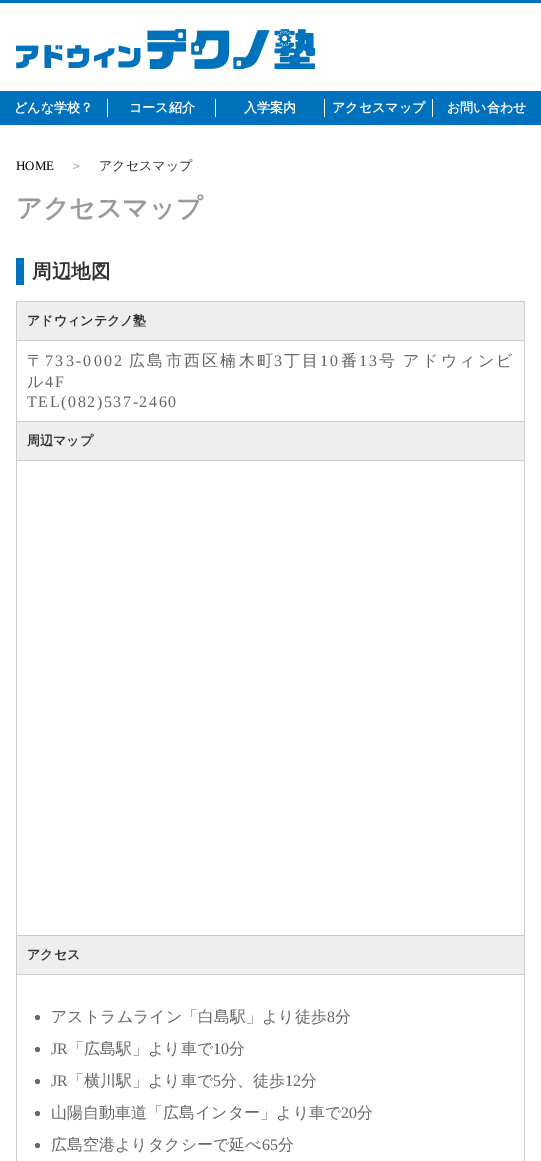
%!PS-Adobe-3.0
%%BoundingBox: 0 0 541 1161
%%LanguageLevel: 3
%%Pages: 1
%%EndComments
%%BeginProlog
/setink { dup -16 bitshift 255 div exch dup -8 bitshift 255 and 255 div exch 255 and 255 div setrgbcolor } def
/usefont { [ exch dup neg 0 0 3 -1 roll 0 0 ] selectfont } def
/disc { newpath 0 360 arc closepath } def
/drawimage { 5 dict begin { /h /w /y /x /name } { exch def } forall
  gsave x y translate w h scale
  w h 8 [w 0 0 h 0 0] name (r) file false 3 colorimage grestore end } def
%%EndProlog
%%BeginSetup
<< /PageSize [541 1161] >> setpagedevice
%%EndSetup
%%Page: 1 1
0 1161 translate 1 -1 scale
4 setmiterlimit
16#FFFFFF setink
0 0 541 1161 rectfill
16#0071BC setink
0 0 541 3 rectfill
(img1.raw) 16 29 299 40 drawimage
0 91 541 34 rectfill
16#FFFFFF setink
107 99 1 18 rectfill
/WenQuanYiZenHei-Bold 13 usefont
14 112 moveto (どんな学校？) show
215 99 1 18 rectfill
129 112 moveto (コース紹介) show
324 99 1 18 rectfill
244 112 moveto (入学案内) show
432 99 1 18 rectfill
332 112 moveto (アクセスマップ) show
447 112 moveto (お問い合わせ) show
/LiberationSerif-Regular 13 usefont
16#000000 setink
16 170 moveto (HOME) show
/WenQuanYiZenHei-Medium 13 usefont
16#999999 setink
70 170 moveto (＞) show
16#313131 setink
99 170 moveto (アクセスマップ) show
/WenQuanYiZenHei-Bold 26 usefont
16#999999 setink
16 217 moveto (アクセスマップ) show
16#0071BC setink
16 258 8 27 rectfill
/WenQuanYiZenHei-Bold 19.5 usefont
16#313131 setink
32 278 moveto (周辺地図) show
[
    [17 302 507 38 16#EEEEEE]
    [16 301 509 1 16#CCCCCC]
    [524 301 1 39 16#CCCCCC]
    [16 301 1 39 16#CCCCCC]
] { aload pop setink rectfill } forall
/WenQuanYiZenHei-Bold 13 usefont
16#313131 setink
27 325 moveto (アドウィンテクノ塾) show
[
    [16 340 509 1 16#CCCCCC]
    [524 340 1 81 16#CCCCCC]
    [16 340 1 81 16#CCCCCC]
] { aload pop setink rectfill } forall
/WenQuanYiZenHei-Medium 16 usefont
16#666666 setink
27 366 moveto 2.25 0 (〒) ashow
/LiberationSerif-Regular 16 usefont
45 366 moveto 2.25 0 (733-0002) ashow
/WenQuanYiZenHei-Medium 16 usefont
129 366 moveto 2.25 0 (広島市西区楠木町) ashow
/LiberationSerif-Regular 16 usefont
274 366 moveto 2.25 0 (3) ashow
/WenQuanYiZenHei-Medium 16 usefont
284 366 moveto 2.25 0 (丁目) ashow
/LiberationSerif-Regular 16 usefont
320 366 moveto 2.25 0 (10) ashow
/WenQuanYiZenHei-Medium 16 usefont
341 366 moveto 2.25 0 (番) ashow
/LiberationSerif-Regular 16 usefont
359 366 moveto 2.25 0 (13) ashow
/WenQuanYiZenHei-Medium 16 usefont
379 366 moveto -1 0 32 2.25 0 (号 アドウィンビ) awidthshow
27 387 moveto 1.6 0 (ル) ashow
/LiberationSerif-Regular 16 usefont
45 387 moveto 1.6 0 (4F) ashow
27 407 moveto 1.6 0 (TEL\(082\)537-2460) ashow
[
    [17 422 507 38 16#EEEEEE]
    [16 421 509 1 16#CCCCCC]
    [524 421 1 39 16#CCCCCC]
    [16 421 1 39 16#CCCCCC]
] { aload pop setink rectfill } forall
/WenQuanYiZenHei-Bold 13 usefont
16#313131 setink
27 445 moveto (周辺マップ) show
[
    [16 460 509 1 16#CCCCCC]
    [524 460 1 475 16#CCCCCC]
    [16 460 1 475 16#CCCCCC]
    [17 936 507 38 16#EEEEEE]
    [16 935 509 1 16#CCCCCC]
    [524 935 1 39 16#CCCCCC]
    [16 935 1 39 16#CCCCCC]
] { aload pop setink rectfill } forall
16#313131 setink
27 959 moveto (アクセス) show
[
    [16 974 509 1 16#CCCCCC]
    [524 974 1 187 16#CCCCCC]
    [16 974 1 187 16#CCCCCC]
] { aload pop setink rectfill } forall
16#666666 setink
37.5 1017.5 2.5 disc fill
/WenQuanYiZenHei-Medium 16 usefont
51 1022 moveto (アストラムライン「白島駅」より徒歩) show
/LiberationSerif-Regular 16 usefont
327 1022 moveto (8) show
/WenQuanYiZenHei-Medium 16 usefont
335 1022 moveto (分) show
37.5 1049.5 2.5 disc fill
/LiberationSerif-Regular 16 usefont
51 1054 moveto (JR) show
/WenQuanYiZenHei-Medium 16 usefont
68 1054 moveto (「広島駅」より車で) show
/LiberationSerif-Regular 16 usefont
213 1054 moveto (10) show
/WenQuanYiZenHei-Medium 16 usefont
229 1054 moveto (分) show
37.5 1081.5 2.5 disc fill
/LiberationSerif-Regular 16 usefont
51 1086 moveto (JR) show
/WenQuanYiZenHei-Medium 16 usefont
68 1086 moveto (「横川駅」より車で) show
/LiberationSerif-Regular 16 usefont
213 1086 moveto (5) show
/WenQuanYiZenHei-Medium 16 usefont
221 1086 moveto (分、徒歩) show
/LiberationSerif-Regular 16 usefont
285 1086 moveto (12) show
/WenQuanYiZenHei-Medium 16 usefont
301 1086 moveto (分) show
37.5 1113.5 2.5 disc fill
51 1118 moveto (山陽自動車道「広島インター」より車で) show
/LiberationSerif-Regular 16 usefont
341 1118 moveto (20) show
/WenQuanYiZenHei-Medium 16 usefont
357 1118 moveto (分) show
37.5 1145.5 2.5 disc fill
51 1150 moveto (広島空港よりタクシーで延べ) show
/LiberationSerif-Regular 16 usefont
262 1150 moveto (65) show
/WenQuanYiZenHei-Medium 16 usefont
278 1150 moveto (分) show
showpage
%%EOF
